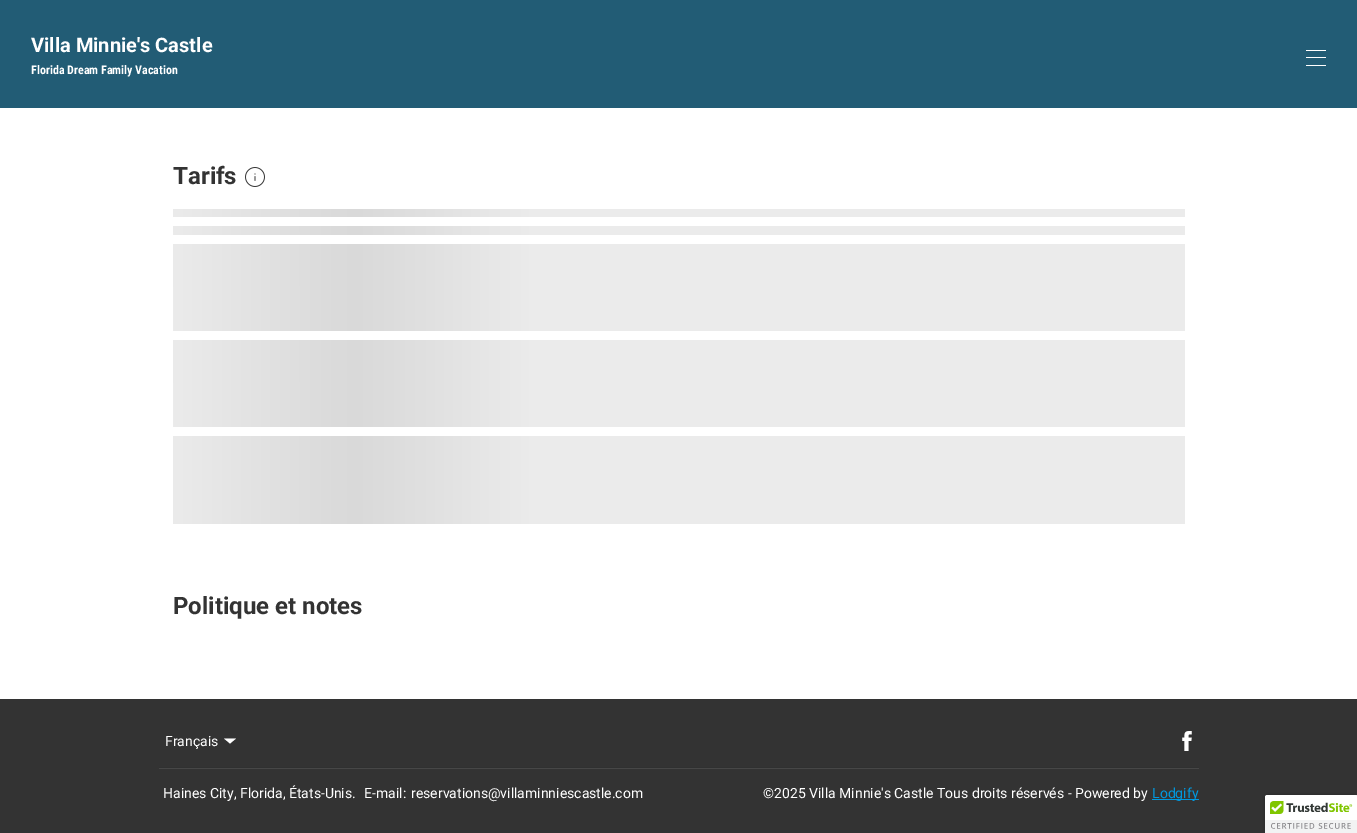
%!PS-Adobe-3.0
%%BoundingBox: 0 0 1357 833
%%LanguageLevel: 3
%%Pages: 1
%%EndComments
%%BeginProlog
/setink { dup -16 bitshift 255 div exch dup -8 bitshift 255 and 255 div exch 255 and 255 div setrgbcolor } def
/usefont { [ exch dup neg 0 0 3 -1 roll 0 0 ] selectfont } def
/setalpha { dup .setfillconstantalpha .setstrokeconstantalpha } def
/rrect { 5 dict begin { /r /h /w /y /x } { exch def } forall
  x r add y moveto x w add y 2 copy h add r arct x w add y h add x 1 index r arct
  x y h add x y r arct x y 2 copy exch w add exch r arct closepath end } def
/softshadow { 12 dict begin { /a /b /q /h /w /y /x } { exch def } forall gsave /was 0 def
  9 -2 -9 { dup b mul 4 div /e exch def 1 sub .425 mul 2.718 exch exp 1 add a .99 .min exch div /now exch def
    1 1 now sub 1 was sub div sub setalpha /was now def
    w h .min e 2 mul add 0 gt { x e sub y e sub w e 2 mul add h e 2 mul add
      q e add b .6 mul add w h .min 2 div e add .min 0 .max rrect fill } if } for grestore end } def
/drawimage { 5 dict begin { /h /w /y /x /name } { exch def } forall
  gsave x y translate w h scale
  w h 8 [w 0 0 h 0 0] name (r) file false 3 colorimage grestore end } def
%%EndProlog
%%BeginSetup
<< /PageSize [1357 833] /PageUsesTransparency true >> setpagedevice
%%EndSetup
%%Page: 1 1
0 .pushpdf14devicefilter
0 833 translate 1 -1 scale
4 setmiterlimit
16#FFFFFF setink
0 0 1357 833 rectfill
16#225C75 setink
0 0 1357 108 rectfill
/Roboto-Bold 20 usefont
16#FFFFFF setink
31 52 moveto (Villa Minnie's Castle) show
/RobotoCondensed-Bold 12 usefont
31 74 moveto (Florida Dream Family Vacation) show
[
    [1306 50 20 1 16#FFFFFF]
    [1306 57 20 1 16#FFFFFF]
    [1306 65 20 1 16#FFFFFF]
] { aload pop setink rectfill } forall
/Roboto-Bold 24 usefont
16#333333 setink
173 184 moveto (Tarifs) show
(img1.raw) 245 167 20 20 drawimage
gsave 173 209 1012 8 2 rrect clip newpath
<< /ShadingType 2 /ColorSpace /DeviceRGB /Coords [173 213 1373 213] /Extend [true true] /Function << /FunctionType 3 /Domain [0 1] /Functions [<< /FunctionType 2 /Domain [0 1] /C0 [0.922 0.922 0.922] /C1 [0.851 0.851 0.851] /N 1 >> << /FunctionType 2 /Domain [0 1] /C0 [0.851 0.851 0.851] /C1 [0.922 0.922 0.922] /N 1 >> << /FunctionType 2 /Domain [0 1] /C0 [0.922 0.922 0.922] /C1 [0.922 0.922 0.922] /N 1 >>] /Bounds [0.15 0.3] /Encode [0 1 0 1 0 1] >> >> shfill grestore
gsave 173 226 1012 9 2 rrect clip newpath
<< /ShadingType 2 /ColorSpace /DeviceRGB /Coords [173 231 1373 230] /Extend [true true] /Function << /FunctionType 3 /Domain [0 1] /Functions [<< /FunctionType 2 /Domain [0 1] /C0 [0.922 0.922 0.922] /C1 [0.851 0.851 0.851] /N 1 >> << /FunctionType 2 /Domain [0 1] /C0 [0.851 0.851 0.851] /C1 [0.922 0.922 0.922] /N 1 >> << /FunctionType 2 /Domain [0 1] /C0 [0.922 0.922 0.922] /C1 [0.922 0.922 0.922] /N 1 >>] /Bounds [0.15 0.3] /Encode [0 1 0 1 0 1] >> >> shfill grestore
gsave 173 244 1012 87 2 rrect clip newpath
<< /ShadingType 2 /ColorSpace /DeviceRGB /Coords [173 288 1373 287] /Extend [true true] /Function << /FunctionType 3 /Domain [0 1] /Functions [<< /FunctionType 2 /Domain [0 1] /C0 [0.922 0.922 0.922] /C1 [0.851 0.851 0.851] /N 1 >> << /FunctionType 2 /Domain [0 1] /C0 [0.851 0.851 0.851] /C1 [0.922 0.922 0.922] /N 1 >> << /FunctionType 2 /Domain [0 1] /C0 [0.922 0.922 0.922] /C1 [0.922 0.922 0.922] /N 1 >>] /Bounds [0.15 0.3] /Encode [0 1 0 1 0 1] >> >> shfill grestore
gsave 173 340 1012 87 2 rrect clip newpath
<< /ShadingType 2 /ColorSpace /DeviceRGB /Coords [173 384 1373 383] /Extend [true true] /Function << /FunctionType 3 /Domain [0 1] /Functions [<< /FunctionType 2 /Domain [0 1] /C0 [0.922 0.922 0.922] /C1 [0.851 0.851 0.851] /N 1 >> << /FunctionType 2 /Domain [0 1] /C0 [0.851 0.851 0.851] /C1 [0.922 0.922 0.922] /N 1 >> << /FunctionType 2 /Domain [0 1] /C0 [0.922 0.922 0.922] /C1 [0.922 0.922 0.922] /N 1 >>] /Bounds [0.15 0.3] /Encode [0 1 0 1 0 1] >> >> shfill grestore
gsave 173 436 1012 88 2 rrect clip newpath
<< /ShadingType 2 /ColorSpace /DeviceRGB /Coords [173 480 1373 480] /Extend [true true] /Function << /FunctionType 3 /Domain [0 1] /Functions [<< /FunctionType 2 /Domain [0 1] /C0 [0.922 0.922 0.922] /C1 [0.851 0.851 0.851] /N 1 >> << /FunctionType 2 /Domain [0 1] /C0 [0.851 0.851 0.851] /C1 [0.922 0.922 0.922] /N 1 >> << /FunctionType 2 /Domain [0 1] /C0 [0.922 0.922 0.922] /C1 [0.922 0.922 0.922] /N 1 >>] /Bounds [0.15 0.3] /Encode [0 1 0 1 0 1] >> >> shfill grestore
173 614 moveto (Politique et notes) show
0 699 1357 134 rectfill
/Roboto-Regular 14 usefont
16#FFFFFF setink
165 746 moveto (Français) show
236 738.5 moveto 230 743.5 lineto 224 738.5 lineto closepath fill
(img2.raw) 1182 731 10 20 drawimage
16#303131 setink
159 767 1040 1 rectfill
16#474747 setink
159 768 1040 1 rectfill
16#FFFFFF setink
[
    [(Haines City, Florida, États-Unis.) 163 798]
    [(E-mail:) 364 798]
    [(reservations@villaminniescastle.com) 411 798]
    [(©2025 Villa Minnie's Castle Tous droits réservés - Powered by) 763 798]
] { aload pop moveto show } forall
16#0098DE setink
1152 799 47 1 rectfill
1152 798 moveto (Lodgify) show
16#000000 setink
1265 795 92 38 2 2.5 0.2 softshadow
16#FFFFFF setink
1267 795 moveto 1357 795 lineto 1357 833 lineto 1265 833 lineto 1265 797 lineto 1265 796 1266 795 1267 795 curveto closepath fill
(img3.raw) 1265 795 92 38 drawimage
.poppdf14devicefilter showpage
%%EOF
